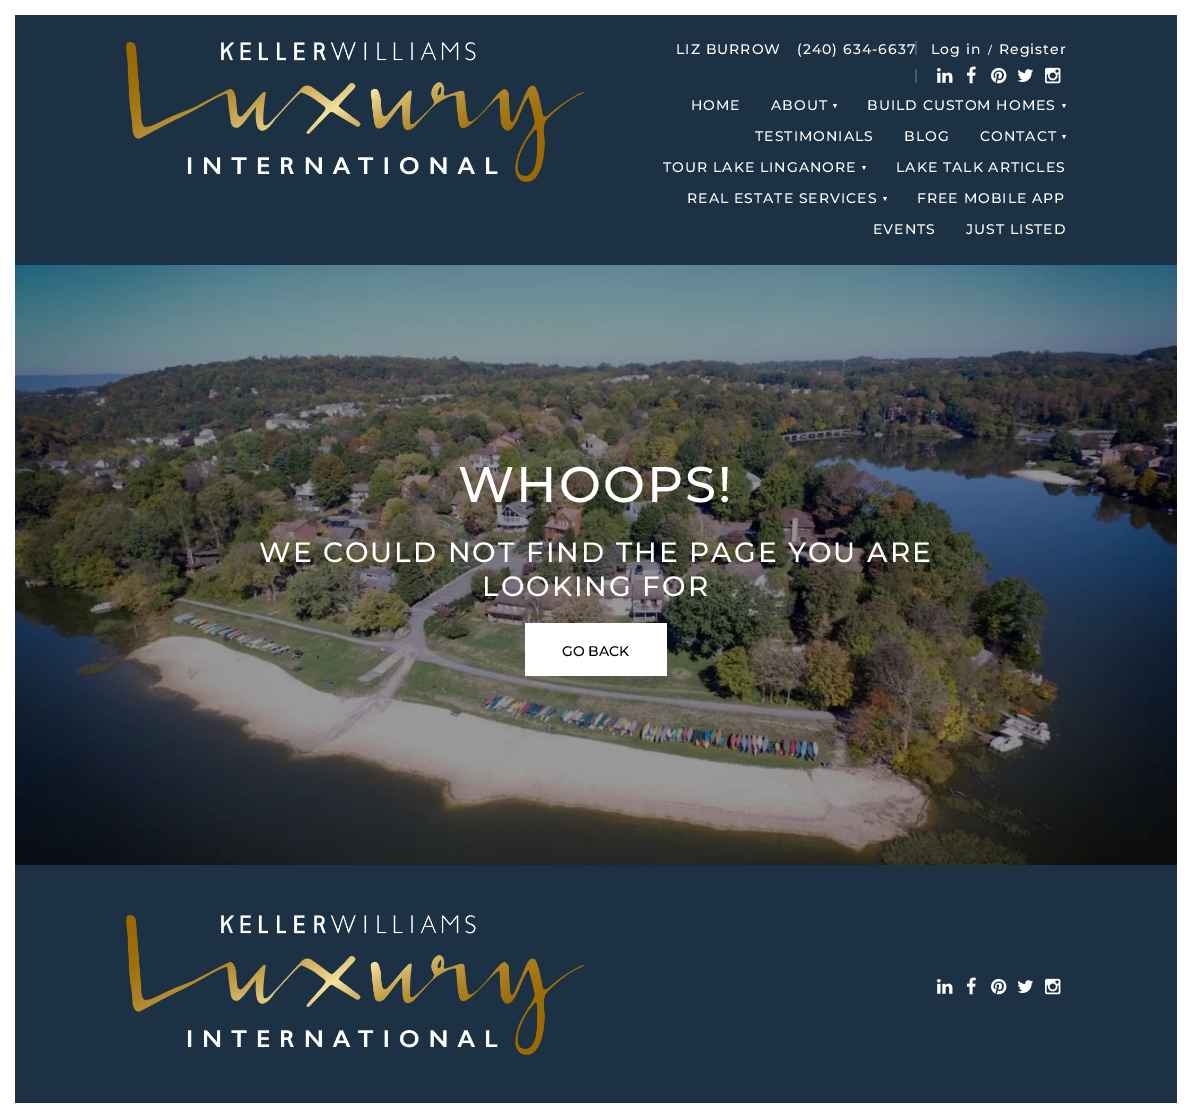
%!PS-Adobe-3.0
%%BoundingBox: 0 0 1192 1118
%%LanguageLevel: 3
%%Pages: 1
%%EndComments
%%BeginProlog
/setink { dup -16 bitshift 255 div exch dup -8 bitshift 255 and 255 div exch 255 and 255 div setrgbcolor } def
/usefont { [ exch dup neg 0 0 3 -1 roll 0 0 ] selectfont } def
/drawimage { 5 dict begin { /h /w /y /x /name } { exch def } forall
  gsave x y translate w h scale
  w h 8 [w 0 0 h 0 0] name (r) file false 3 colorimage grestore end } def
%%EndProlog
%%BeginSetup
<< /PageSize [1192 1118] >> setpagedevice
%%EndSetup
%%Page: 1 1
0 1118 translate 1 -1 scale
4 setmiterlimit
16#FFFFFF setink
0 0 1192 1118 rectfill
16#1C3144 setink
15 15 1162 250 rectfill
(img1.raw) 126 42 459 140 drawimage
/Montserrat-Medium 14 usefont
16#FFFFFF setink
676 54 moveto 1 0 (LIZ BURROW) ashow
797 54 moveto 1 0 (\(240\) 634-6637) ashow
16#495A69 setink
915 41 2 14 rectfill
16#FFFFFF setink
931 54 moveto 1 0 (Log in) ashow
/Montserrat-Medium 11 usefont
988 54 moveto (/) show
/Montserrat-Medium 14 usefont
999 54 moveto 1 0 (Register) ashow
16#495A69 setink
915 69 2 14 rectfill
(img2.raw) 937 68 16 15 drawimage
(img3.raw) 966 66 10 18 drawimage
(img4.raw) 991 67 16 17 drawimage
(img5.raw) 1017 69 17 13 drawimage
(img6.raw) 1045 67 16 17 drawimage
16#FFFFFF setink
691 110 moveto 1 0 (HOME) ashow
771 110 moveto 1 0 (ABOUT) ashow
833 104 moveto 837 104 lineto 835 108 lineto closepath fill
867 110 moveto 1 0 (BUILD CUSTOM HOMES) ashow
1062 104 moveto 1066 104 lineto 1064 108 lineto closepath fill
755 141 moveto 1 0 (TESTIMONIALS) ashow
904 141 moveto 1 0 (BLOG) ashow
980 141 moveto 1 0 (CONTACT) ashow
1062 135 moveto 1066 135 lineto 1064 139 lineto closepath fill
663 172 moveto 1 0 (TOUR LAKE LINGANORE) ashow
862 166 moveto 866 166 lineto 864 170 lineto closepath fill
896 172 moveto 1 0 (LAKE TALK ARTICLES) ashow
687 203 moveto 1 0 (REAL ESTATE SERVICES) ashow
883 197 moveto 887 197 lineto 885 201 lineto closepath fill
917 203 moveto 1 0 (FREE MOBILE APP) ashow
873 234 moveto 1 0 (EVENTS) ashow
966 234 moveto 1 0 (JUST LISTED) ashow
(img7.raw) 15 265 1162 600 drawimage
/Montserrat-Medium 50 usefont
458 502 moveto 2 0 (WHOOPS!) ashow
/Montserrat-Medium 28 usefont
259 562 moveto 2 0 (WE COULD NOT FIND THE PAGE YOU ARE) ashow
482 596 moveto 2 0 (LOOKING FOR) ashow
525 623 142 53 rectfill
/Montserrat-Medium 14 usefont
16#000000 setink
562 656 moveto (GO BACK) show
16#1C3144 setink
15 865 1162 238 rectfill
(img1.raw) 126 915 459 140 drawimage
(img2.raw) 937 979 16 15 drawimage
(img3.raw) 966 977 10 18 drawimage
(img4.raw) 991 978 16 17 drawimage
(img5.raw) 1017 980 17 13 drawimage
(img6.raw) 1045 978 16 17 drawimage
showpage
%%EOF
